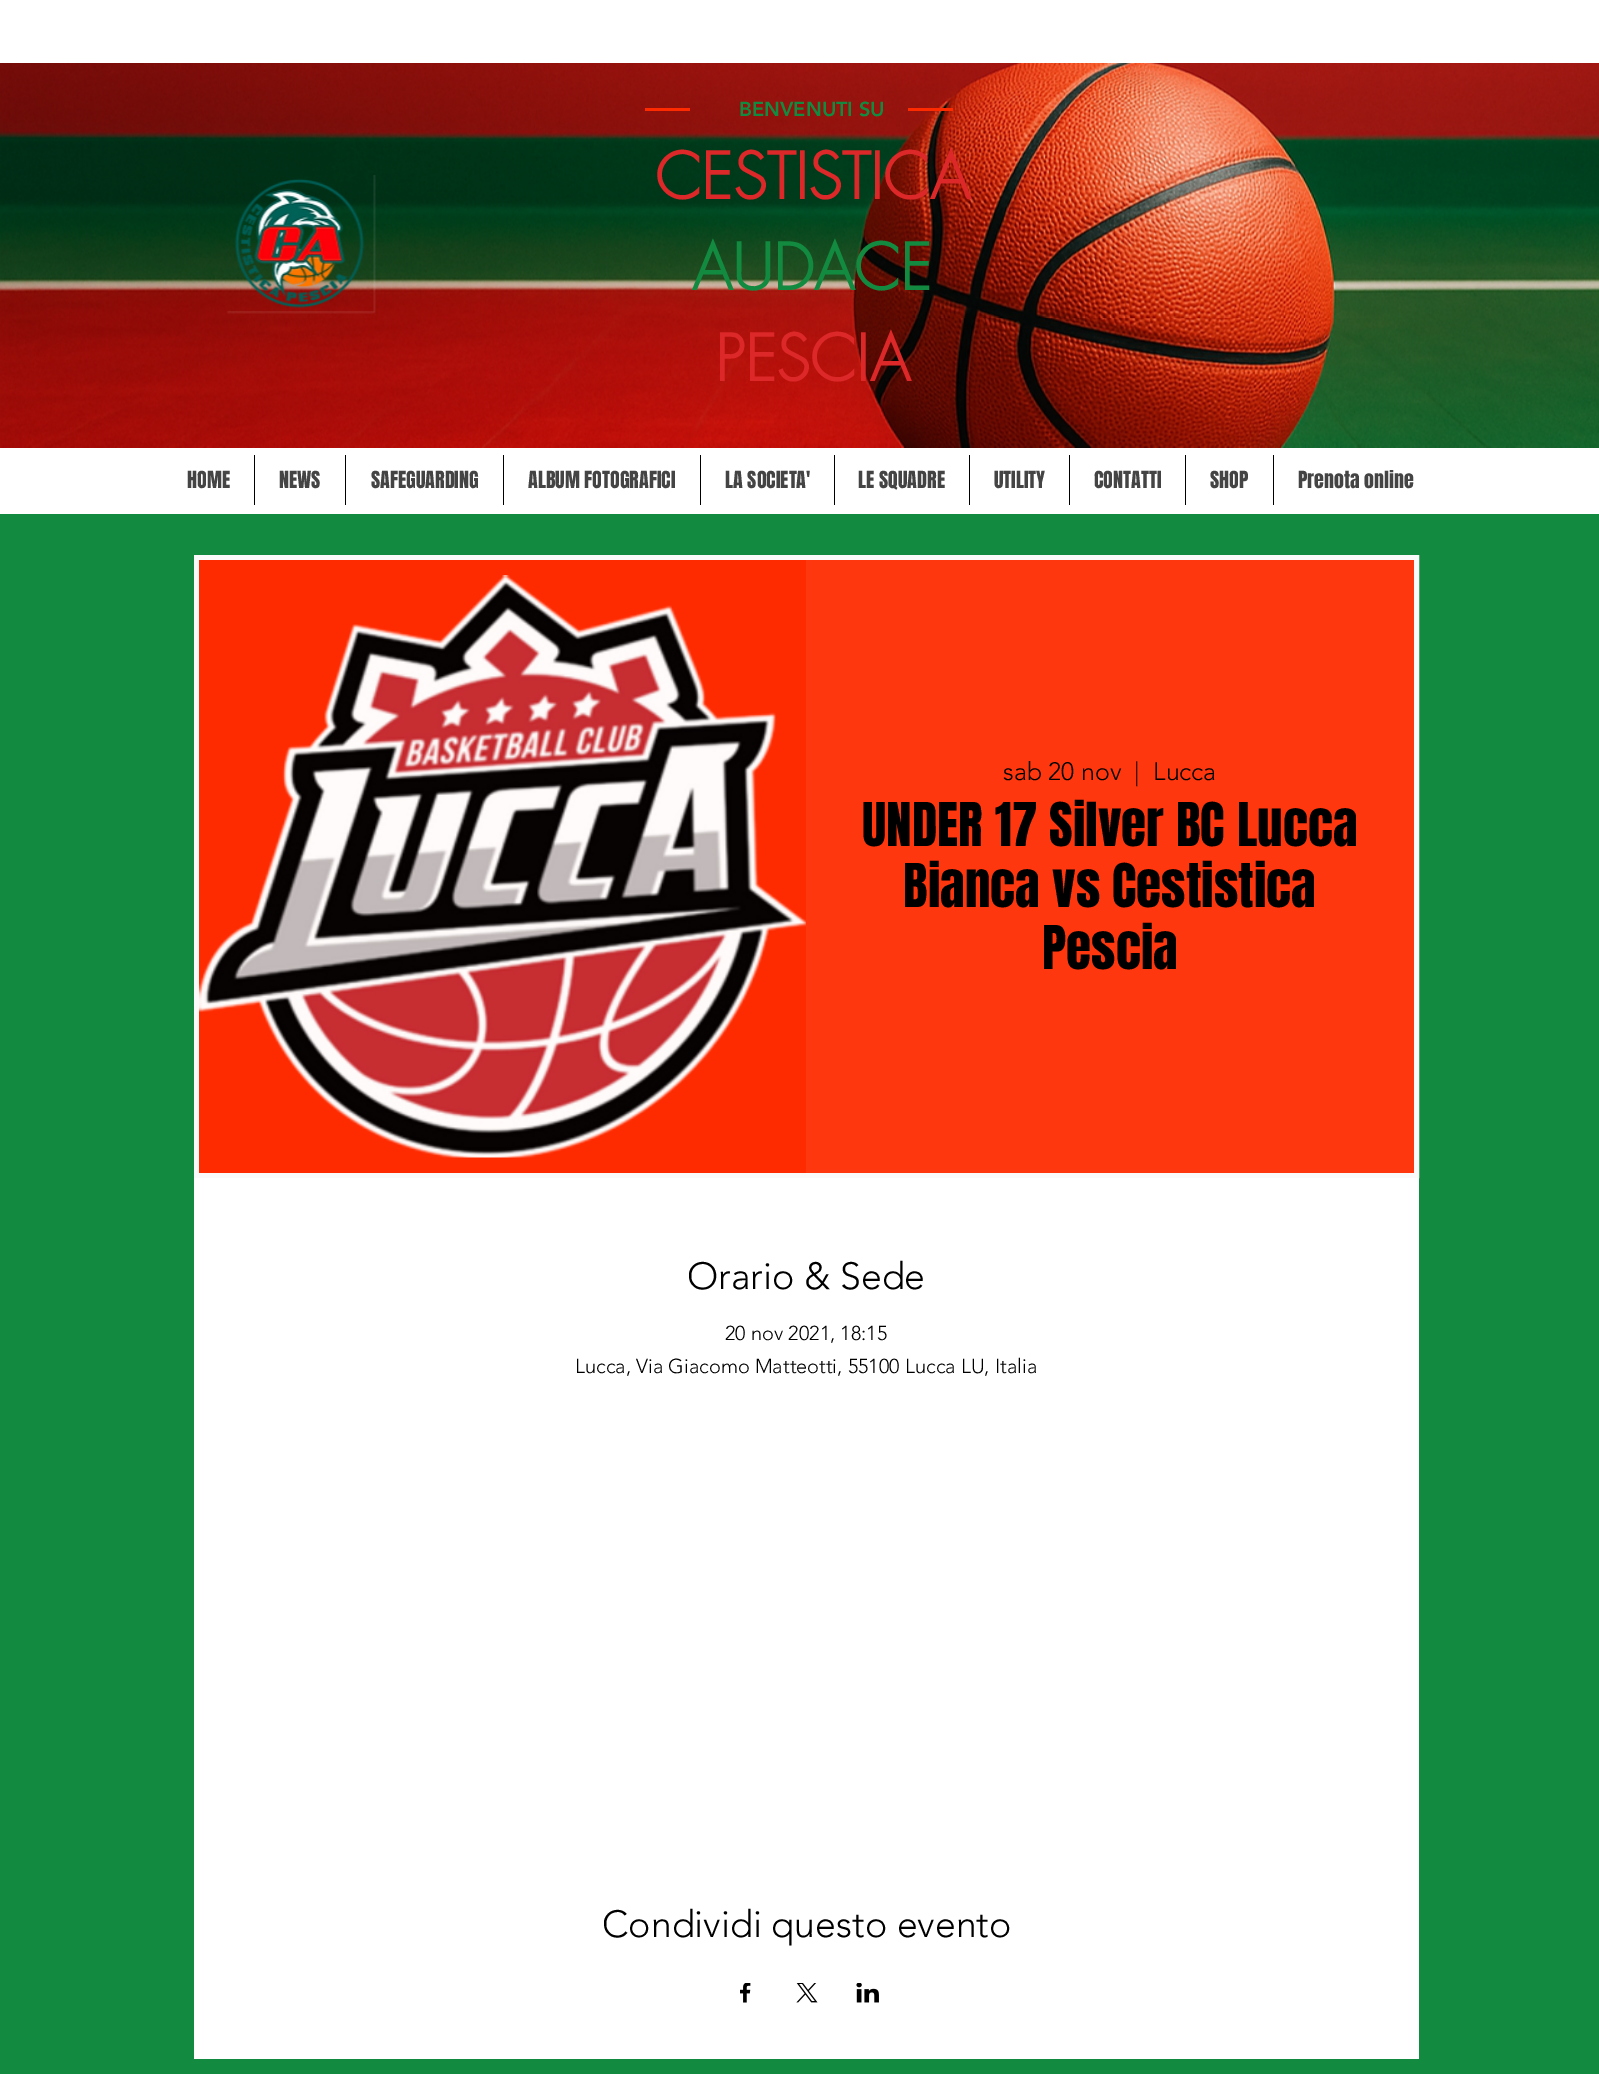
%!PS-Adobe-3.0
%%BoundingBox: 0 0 1599 2074
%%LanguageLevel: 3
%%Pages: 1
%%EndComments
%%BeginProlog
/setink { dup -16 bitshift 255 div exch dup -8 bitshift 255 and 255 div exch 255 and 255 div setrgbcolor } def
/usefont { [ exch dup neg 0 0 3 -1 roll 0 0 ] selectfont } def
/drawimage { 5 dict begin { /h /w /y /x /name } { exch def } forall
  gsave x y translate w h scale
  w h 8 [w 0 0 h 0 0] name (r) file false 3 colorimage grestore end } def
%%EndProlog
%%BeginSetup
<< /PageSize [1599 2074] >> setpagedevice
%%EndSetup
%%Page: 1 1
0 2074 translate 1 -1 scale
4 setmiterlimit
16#128B40 setink
0 0 1599 2074 rectfill
16#FFFFFF setink
0 0 1599 514 rectfill
(img1.raw) 0 63 1599 385 drawimage
16#FE2A00 setink
645 108 45 3 rectfill
/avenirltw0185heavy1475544-Black 20 usefont
16#128B40 setink
739 116 moveto (BENVENUTI SU) show
16#FE2A00 setink
908 108 45 3 rectfill
(img2.raw) 227 175 149 139 drawimage
/futura-Bold 62.5 usefont
16#DC2828 setink
655 199 moveto (CESTISTICA) show
16#128B40 setink
692 290 moveto (AUDACE) show
16#DC2828 setink
715 381 moveto (PESCIA) show
/Anton-Regular 20 usefont
16#444444 setink
187 488 moveto (HOME) show
16#000000 setink
254 455 1 50 rectfill
16#444444 setink
279 488 moveto (NEWS) show
16#000000 setink
345 455 1 50 rectfill
16#444444 setink
371 488 moveto (SAFEGUARDING) show
16#000000 setink
503 455 1 50 rectfill
16#444444 setink
528 488 moveto (ALBUM FOTOGRAFICI) show
16#000000 setink
700 455 1 50 rectfill
16#444444 setink
725 488 moveto (LA SOCIETA') show
16#000000 setink
834 455 1 50 rectfill
16#444444 setink
858 488 moveto (LE SQUADRE) show
16#000000 setink
969 455 1 50 rectfill
16#444444 setink
994 488 moveto (UTILITY) show
16#000000 setink
1069 455 1 50 rectfill
16#444444 setink
1094 488 moveto (CONTATTI) show
16#000000 setink
1185 455 1 50 rectfill
16#444444 setink
1210 488 moveto (SHOP) show
16#000000 setink
1273 455 1 50 rectfill
16#444444 setink
1298 488 moveto (Prenota online) show
16#FAFAFA setink
5 setlinewidth
196.5 557.5 1220 618 rectstroke
16#FE2A00 setink
199 560 607 613 rectfill
(img3.raw) 199 575 607 583 drawimage
16#FE370F setink
806 560 608 613 rectfill
/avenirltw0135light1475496-Light 25 usefont
16#000000 setink
[
    [(sab 20 nov) 1003 780]
    [(|) 1134 780]
    [(Lucca) 1153 780]
] { aload pop moveto show } forall
/Anton-Regular 51.25 usefont
[
    [(UNDER 17 Silver BC Lucca) 862 846]
    [(Bianca vs Cestistica) 903 907]
    [(Pescia) 1042 969]
] { aload pop moveto show } forall
16#FFFFFF setink
194 1178 1225 881 rectfill
/avenirltw0135light1475496-Light 37.5 usefont
16#000000 setink
687 1289 moveto (Orario & Sede) show
/avenirltw0135light1475496-Light 20 usefont
725 1340 moveto (20 nov 2021, 18:15) show
575 1373 moveto (Lucca, Via Giacomo Matteotti, 55100 Lucca LU, Italia) show
/avenirltw0135light1475496-Light 37.5 usefont
602 1937 moveto (Condividi questo evento) show
(img4.raw) 740 1983 11 20 drawimage
(img5.raw) 796 1983 22 20 drawimage
(img6.raw) 856 1983 23 20 drawimage
showpage
%%EOF
